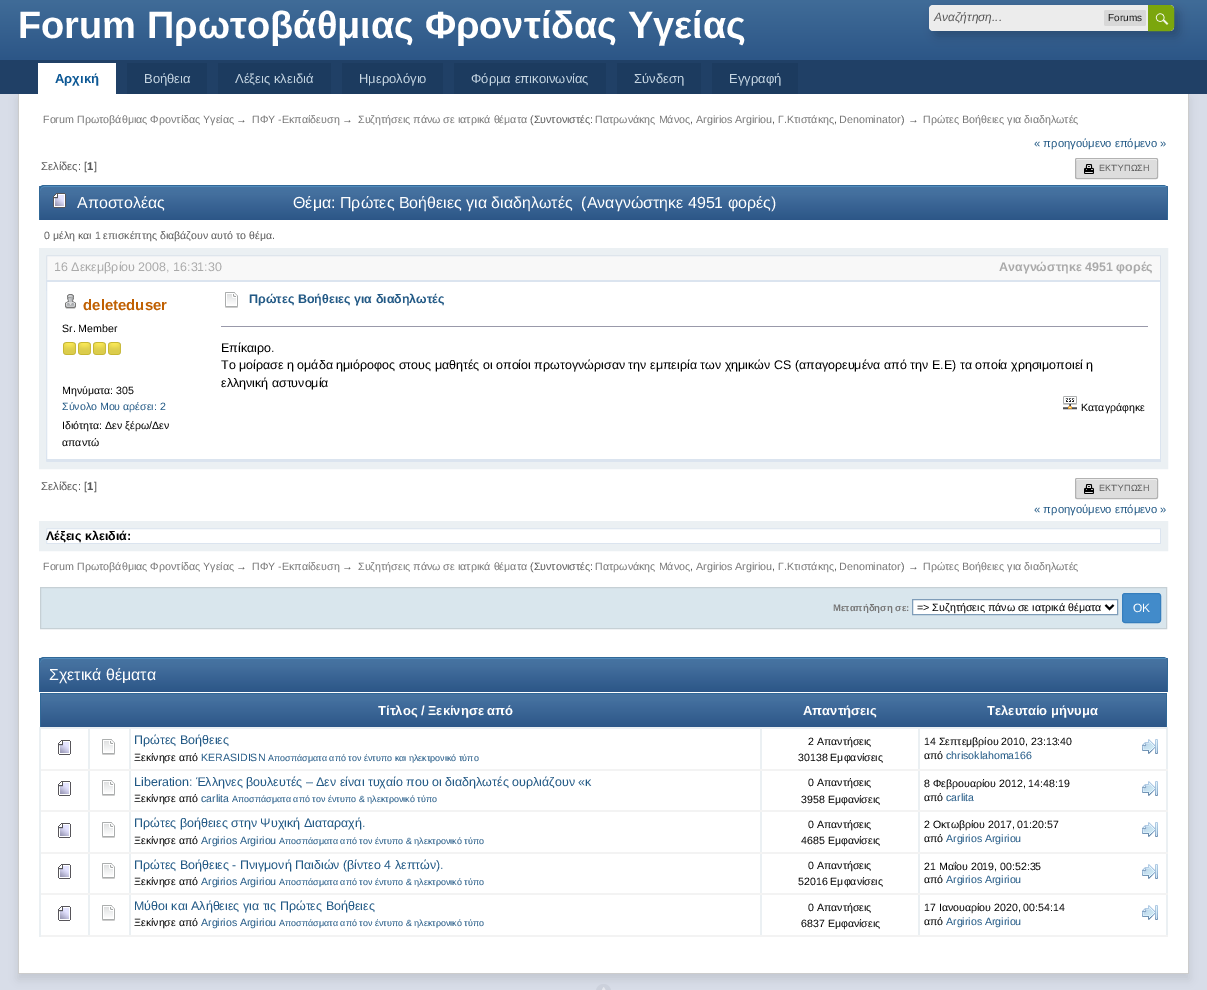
%!PS-Adobe-3.0
%%BoundingBox: 0 0 1207 990
%%LanguageLevel: 3
%%Pages: 1
%%EndComments
%%BeginProlog
/setink { dup -16 bitshift 255 div exch dup -8 bitshift 255 and 255 div exch 255 and 255 div setrgbcolor } def
/usefont { [ exch dup neg 0 0 3 -1 roll 0 0 ] selectfont } def
/setalpha { dup .setfillconstantalpha .setstrokeconstantalpha } def
/rrect { 5 dict begin { /r /h /w /y /x } { exch def } forall
  x r add y moveto x w add y 2 copy h add r arct x w add y h add x 1 index r arct
  x y h add x y r arct x y 2 copy exch w add exch r arct closepath end } def
/softshadow { 12 dict begin { /a /b /q /h /w /y /x } { exch def } forall gsave /was 0 def
  9 -2 -9 { dup b mul 4 div /e exch def 1 sub .425 mul 2.718 exch exp 1 add a .99 .min exch div /now exch def
    1 1 now sub 1 was sub div sub setalpha /was now def
    w h .min e 2 mul add 0 gt { x e sub y e sub w e 2 mul add h e 2 mul add
      q e add b .6 mul add w h .min 2 div e add .min 0 .max rrect fill } if } for grestore end } def
/drawimage { 5 dict begin { /h /w /y /x /name } { exch def } forall
  gsave x y translate w h scale
  w h 8 [w 0 0 h 0 0] name (r) file false 3 colorimage grestore end } def
%%EndProlog
%%BeginSetup
<< /PageSize [1207 990] /PageUsesTransparency true >> setpagedevice
%%EndSetup
%%Page: 1 1
0 .pushpdf14devicefilter
0 990 translate 1 -1 scale
4 setmiterlimit
16#D8DDE8 setink
0 0 1207 990 rectfill
gsave 0 0 moveto 1207 0 lineto 1207 60 lineto 0 60 lineto closepath clip newpath
<< /ShadingType 2 /ColorSpace /DeviceRGB /Coords [604 -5 604 60] /Extend [true true] /Function << /FunctionType 3 /Domain [0 1] /Functions [<< /FunctionType 2 /Domain [0 1] /C0 [0.31 0.518 0.686] /C1 [0.255 0.427 0.6] /N 1 >> << /FunctionType 2 /Domain [0 1] /C0 [0.255 0.427 0.6] /C1 [0.173 0.337 0.529] /N 1 >>] /Bounds [0.02] /Encode [0 1 0 1] >> >> shfill grestore
/LiberationSans-Bold 38 usefont
16#FFFFFF setink
18 38 moveto (Forum Πρωτοβάθμιας Φροντίδας Υγείας) show
16#000000 setink
934 10 245 26 4 5 0.2 softshadow
16#ECECEC setink
929 5 245 26 4 rrect fill
/LiberationSans-Italic 12 usefont
16#595959 setink
934 21 moveto (Αναζήτηση...) show
16#D8D8D8 setink
1104 10 42 16 2 rrect fill
/LiberationSans-Regular 10 usefont
16#1A1A1A setink
1108 21 moveto (Forums) show
16#7BA60D setink
1148 5 moveto 1169 5 lineto 1172 5 1174 7 1174 10 curveto 1174 26 lineto 1174 29 1172 31 1169 31 curveto 1148 31 lineto closepath fill
(img1.raw) 1155 13 14 12 drawimage
1148.5 5.5 moveto 1169 5.5 lineto 1171.5 5.5 1173.5 7.5 1173.5 10 curveto 1173.5 26 lineto 1173.5 28.5 1171.5 30.5 1169 30.5 curveto 1148.5 30.5 lineto closepath stroke
16#204066 setink
0 60 1207 34 rectfill
16#000000 setink
18 99 1171 880 0 4.5 0.1 softshadow
16#FFFFFF setink
38 63 78 31 rectfill
/LiberationSans-Bold 13 usefont
16#0B5794 setink
55 83 moveto (Αρχική) show
16#1C3B5F setink
127 63 80 31 rectfill
/LiberationSans-Regular 13 usefont
16#C5D5E2 setink
144 83 moveto (Βοήθεια) show
16#1C3B5F setink
218 63 113 31 rectfill
16#C5D5E2 setink
235 83 moveto (Λέξεις κλειδιά) show
16#1C3B5F setink
342 63 101 31 rectfill
16#C5D5E2 setink
359 83 moveto (Ημερολόγιο) show
16#1C3B5F setink
454 63 152 31 rectfill
16#C5D5E2 setink
471 83 moveto (Φόρμα επικοινωνίας) show
16#1C3B5F setink
617 63 84 31 rectfill
16#C5D5E2 setink
634 83 moveto (Σύνδεση) show
16#1C3B5F setink
712 63 86 31 rectfill
16#C5D5E2 setink
729 83 moveto (Εγγραφή) show
[
    [19 94 1169 879 16#FFFFFF]
    [1188 94 1 880 16#CCCCCC]
    [18 973 1171 1 16#CCCCCC]
    [18 94 1 880 16#CCCCCC]
] { aload pop setink rectfill } forall
/LiberationSans-Regular 10.7 usefont
16#777777 setink
43 123 moveto (Forum Πρωτοβάθμιας Φροντίδας Υγείας) show
16#595959 setink
236 123 moveto (→) show
16#777777 setink
252 123 moveto (ΠΦΥ -Εκπαίδευση) show
16#595959 setink
342 123 moveto (→) show
16#777777 setink
358 123 moveto (Συζητήσεις πάνω σε ιατρικά θέματα) show
16#595959 setink
530 123 moveto (\(Συντονιστές:) show
16#777777 setink
595 123 moveto (Πατρωνάκης Μάνος) show
16#595959 setink
690 123 moveto (,) show
16#777777 setink
696 123 moveto (Argirios Argiriou) show
16#595959 setink
772 123 moveto (,) show
16#777777 setink
778 123 moveto (Γ.Κτιστάκης) show
16#595959 setink
834 123 moveto (,) show
16#777777 setink
839 123 moveto (Denominator) show
16#595959 setink
901 123 moveto (\) →) show
16#777777 setink
923 123 moveto (Πρώτες Βοήθειες για διαδηλωτές) show
/LiberationSans-Regular 11.25 usefont
16#225985 setink
1034 147 moveto (« προηγούμενο επόμενο ») show
16#595959 setink
41 170 moveto (Σελίδες: [) show
/LiberationSans-Bold 11.25 usefont
87 170 moveto (1) show
/LiberationSans-Regular 11.25 usefont
94 170 moveto (]) show
16#DDDDDD setink
1075 158 83 21 2 rrect fill
16#FCFCFC setink
1077 160 moveto 1156 160 lineto 1157 160 1157 160 1157 161 curveto 1157 160 1157 159 1156 159 curveto 1077 159 lineto 1076 159 1076 160 1076 161 curveto 1076 160 1076 160 1077 160 curveto closepath fill
0.6 setalpha
16#969696 setink
1075.5 158.5 82 20 1.5 rrect stroke
1 setalpha
(img2.raw) 1084 164 10 10 drawimage
/LiberationSans-Regular 9 usefont
16#595959 setink
1099 171 moveto (ΕΚΤΎΠΩΣΗ) show
gsave
44 185 moveto 1163 185 lineto 1166 185 1168 187 1168 190 curveto 1168 220 lineto 39 220 lineto 39 190 lineto 39 187 41 185 44 185 curveto closepath clip newpath
gsave 39 186 moveto 1168 186 lineto 1168 220 lineto 39 220 lineto closepath clip newpath
<< /ShadingType 2 /ColorSpace /DeviceRGB /Coords [604 186 604 220] /Extend [true true] /Function << /FunctionType 3 /Domain [0 1] /Functions [<< /FunctionType 2 /Domain [0 1] /C0 [0.278 0.455 0.635] /C1 [0.267 0.439 0.62] /N 1 >> << /FunctionType 2 /Domain [0 1] /C0 [0.267 0.439 0.62] /C1 [0.173 0.337 0.529] /N 1 >>] /Bounds [0.21] /Encode [0 1 0 1] >> >> shfill grestore
grestore
16#528CBC setink
44 187 moveto 1163 187 lineto 1165 187 1167 189 1167 191 curveto 1167 188 1166 186 1163 186 curveto 44 186 lineto 41 186 40 188 40 191 curveto 40 189 42 187 44 187 curveto closepath fill
16#316897 setink
44 185 moveto 1163 185 lineto 1166 185 1168 187 1168 190 curveto 1168 220 lineto 39 220 lineto 39 190 lineto 39 187 41 185 44 185 curveto closepath 44 186 moveto 1163 186 lineto 1165 186 1167 188 1167 190 curveto 1167 220 lineto 40 220 lineto 40 190 lineto 40 188 42 186 44 186 curveto closepath eofill
gsave 49 186 moveto 1163 186 lineto 1165 186 1167 188 1167 190 curveto 1167 220 lineto 49 220 lineto closepath clip newpath
<< /ShadingType 2 /ColorSpace /DeviceRGB /Coords [608 186 608 220] /Extend [true true] /Function << /FunctionType 3 /Domain [0 1] /Functions [<< /FunctionType 2 /Domain [0 1] /C0 [0.278 0.455 0.635] /C1 [0.267 0.439 0.62] /N 1 >> << /FunctionType 2 /Domain [0 1] /C0 [0.267 0.439 0.62] /C1 [0.173 0.337 0.529] /N 1 >>] /Bounds [0.21] /Encode [0 1 0 1] >> >> shfill grestore
gsave
44 186 moveto 1163 186 lineto 1165 186 1167 188 1167 190 curveto 1167 220 lineto 40 220 lineto 40 190 lineto 40 188 42 186 44 186 curveto closepath clip newpath
16#528CBC setink
49 186 1118 1 rectfill
grestore
(img3.raw) 53 193 13 15 drawimage
/LiberationSans-Regular 16 usefont
16#FFFFFF setink
77 208 moveto (Αποστολέας) show
293 208 moveto (Θέμα: Πρώτες Βοήθειες για διαδηλωτές  \(Αναγνώστηκε 4951 φορές\)) show
/LiberationSans-Regular 10.6 usefont
16#595959 setink
44 239 moveto (0 μέλη και 1 επισκέπτης διαβάζουν αυτό το θέμα.) show
16#DBE4EF setink
46.5 255.5 1114 206 rectstroke
16#EBF0F3 setink
7 setlinewidth
42.5 251.5 1122 214 rectstroke
0.2 setalpha
16#DCDCDC setink
46 255 1115 25 3 rrect fill
/LiberationSans-Regular 12.48 usefont
1 setalpha
16#AAAAAA setink
54 271 moveto (16 Δεκεμβρίου 2008, 16:31:30) show
/LiberationSans-Bold 12.48 usefont
999 271 moveto (Αναγνώστηκε 4951 φορές) show
gsave
46 280 1115 11 rectclip
16#DBE4EF setink
-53 181 moveto 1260 181 lineto 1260 390 lineto -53 390 lineto closepath 47 282 moveto 1160 282 lineto 1160 291 lineto 47 291 lineto closepath eofill
grestore
(img4.raw) 65 294 11 15 drawimage
/LiberationSans-Bold 15 usefont
16#C06002 setink
83 310 moveto (deleteduser) show
/LiberationSans-Regular 10.6 usefont
16#000000 setink
62 332 moveto (Sr. Member) show
(img5.raw) 63 342 13 13 drawimage
(img5.raw) 78 342 13 13 drawimage
(img5.raw) 93 342 13 13 drawimage
(img5.raw) 108 342 13 13 drawimage
62 394 moveto (Μηνύματα: 305) show
16#225985 setink
62 410 moveto (Σύνολο Μου αρέσει: 2) show
16#000000 setink
62 429 moveto (Ιδιότητα: Δεν ξέρω/Δεν) show
62 446 moveto (απαντώ) show
(img6.raw) 225 292 13 16 drawimage
/LiberationSans-Bold 12.48 usefont
16#225985 setink
249 303 moveto (Πρώτες Βοήθειες για διαδηλωτές) show
16#9999AA setink
221 326 927 1 rectfill
/LiberationSans-Regular 12.48 usefont
16#000000 setink
[
    [(Επίκαιρο.) 221 352]
    [(Το μοίρασε η ομάδα ημιόροφος στους μαθητές οι οποίοι πρωτογνώρισαν την εμπειρία των χημικών CS \(απαγορευμένα από την Ε.Ε\) τα οποία χρησιμοποιεί η) 221 369]
    [(ελληνική αστυνομία) 221 387]
] { aload pop moveto show } forall
(img7.raw) 1063 396 14 14 drawimage
/LiberationSans-Regular 10.6 usefont
1081 411 moveto (Καταγράφηκε) show
gsave
46 450 1115 11 rectclip
16#DBE4EF setink
-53 351 moveto 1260 351 lineto 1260 560 lineto -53 560 lineto closepath 47 450 moveto 1160 450 lineto 1160 459 lineto 47 459 lineto closepath eofill
grestore
/LiberationSans-Regular 11.25 usefont
16#595959 setink
41 490 moveto (Σελίδες: [) show
/LiberationSans-Bold 11.25 usefont
87 490 moveto (1) show
/LiberationSans-Regular 11.25 usefont
94 490 moveto (]) show
16#DDDDDD setink
1075 478 83 21 2 rrect fill
16#FCFCFC setink
1077 480 moveto 1156 480 lineto 1157 480 1157 480 1157 481 curveto 1157 480 1157 479 1156 479 curveto 1077 479 lineto 1076 479 1076 480 1076 481 curveto 1076 480 1076 480 1077 480 curveto closepath fill
0.6 setalpha
16#969696 setink
1 setlinewidth
1075.5 478.5 82 20 1.5 rrect stroke
1 setalpha
(img2.raw) 1084 484 10 10 drawimage
/LiberationSans-Regular 9 usefont
16#595959 setink
1099 491 moveto (ΕΚΤΎΠΩΣΗ) show
/LiberationSans-Regular 11.25 usefont
16#225985 setink
1034 513 moveto (« προηγούμενο επόμενο ») show
16#DBE4EF setink
46.5 528.5 1114 15 rectstroke
16#EBF0F3 setink
7 setlinewidth
42.5 524.5 1122 23 rectstroke
/LiberationSans-Bold 12.48 usefont
16#000000 setink
46 540 moveto (Λέξεις κλειδιά:) show
/LiberationSans-Regular 10.7 usefont
16#777777 setink
43 570 moveto (Forum Πρωτοβάθμιας Φροντίδας Υγείας) show
16#595959 setink
236 570 moveto (→) show
16#777777 setink
252 570 moveto (ΠΦΥ -Εκπαίδευση) show
16#595959 setink
342 570 moveto (→) show
16#777777 setink
358 570 moveto (Συζητήσεις πάνω σε ιατρικά θέματα) show
16#595959 setink
530 570 moveto (\(Συντονιστές:) show
16#777777 setink
595 570 moveto (Πατρωνάκης Μάνος) show
16#595959 setink
690 570 moveto (,) show
16#777777 setink
696 570 moveto (Argirios Argiriou) show
16#595959 setink
772 570 moveto (,) show
16#777777 setink
778 570 moveto (Γ.Κτιστάκης) show
16#595959 setink
834 570 moveto (,) show
16#777777 setink
839 570 moveto (Denominator) show
16#595959 setink
901 570 moveto (\) →) show
16#777777 setink
923 570 moveto (Πρώτες Βοήθειες για διαδηλωτές) show
16#D9E6ED setink
40.5 587.5 moveto 1166.5 587.5 lineto 1166.5 628.5 lineto 40.5 628.5 lineto closepath gsave fill grestore
16#C6D0D5 setink
1 setlinewidth
stroke
/LiberationSans-Bold 9.5 usefont
16#777777 setink
833 611 moveto (Μεταπήδηση σε:) show
16#FFFFFF setink
912.5 599.5 moveto 1117.5 599.5 lineto 1117.5 614.5 lineto 912.5 614.5 lineto closepath gsave fill grestore
16#7F9DB9 setink
stroke
16#000000 setink
2 setlinewidth
1105.5 605 moveto 1109.5 609 lineto 1113.5 605 lineto stroke
/LiberationSans-Regular 10.7 usefont
917 611 moveto (=> Συζητήσεις πάνω σε ιατρικά θέματα) show
16#428BCA setink
1122.5 593.5 38 29 2.5 rrect gsave fill grestore
16#357EBD setink
1 setlinewidth
stroke
/LiberationSans-Regular 12 usefont
16#FFFFFF setink
1133 612 moveto (ΟΚ) show
gsave
44 657 moveto 1163 657 lineto 1166 657 1168 659 1168 662 curveto 1168 692 lineto 39 692 lineto 39 662 lineto 39 659 41 657 44 657 curveto closepath clip newpath
gsave 39 658 moveto 1168 658 lineto 1168 692 lineto 39 692 lineto closepath clip newpath
<< /ShadingType 2 /ColorSpace /DeviceRGB /Coords [604 658 604 692] /Extend [true true] /Function << /FunctionType 3 /Domain [0 1] /Functions [<< /FunctionType 2 /Domain [0 1] /C0 [0.278 0.455 0.635] /C1 [0.267 0.439 0.62] /N 1 >> << /FunctionType 2 /Domain [0 1] /C0 [0.267 0.439 0.62] /C1 [0.173 0.337 0.529] /N 1 >>] /Bounds [0.21] /Encode [0 1 0 1] >> >> shfill grestore
grestore
16#528CBC setink
44 659 moveto 1163 659 lineto 1165 659 1167 661 1167 663 curveto 1167 660 1166 658 1163 658 curveto 44 658 lineto 41 658 40 660 40 663 curveto 40 661 42 659 44 659 curveto closepath fill
16#316897 setink
44 657 moveto 1163 657 lineto 1166 657 1168 659 1168 662 curveto 1168 692 lineto 39 692 lineto 39 662 lineto 39 659 41 657 44 657 curveto closepath 44 658 moveto 1163 658 lineto 1165 658 1167 660 1167 662 curveto 1167 692 lineto 40 692 lineto 40 662 lineto 40 660 42 658 44 658 curveto closepath eofill
gsave 49 658 moveto 1163 658 lineto 1165 658 1167 660 1167 662 curveto 1167 692 lineto 49 692 lineto closepath clip newpath
<< /ShadingType 2 /ColorSpace /DeviceRGB /Coords [608 658 608 692] /Extend [true true] /Function << /FunctionType 3 /Domain [0 1] /Functions [<< /FunctionType 2 /Domain [0 1] /C0 [0.278 0.455 0.635] /C1 [0.267 0.439 0.62] /N 1 >> << /FunctionType 2 /Domain [0 1] /C0 [0.267 0.439 0.62] /C1 [0.173 0.337 0.529] /N 1 >>] /Bounds [0.21] /Encode [0 1 0 1] >> >> shfill grestore
gsave
44 658 moveto 1163 658 lineto 1165 658 1167 660 1167 662 curveto 1167 692 lineto 40 692 lineto 40 662 lineto 40 660 42 658 44 658 curveto closepath clip newpath
16#528CBC setink
49 658 1118 1 rectfill
grestore
/LiberationSans-Regular 16 usefont
16#FFFFFF setink
49 680 moveto (Σχετικά θέματα) show
[
    [40 693 1127 1 16#316897]
    [1166 693 1 36 16#316897]
    [40 693 1 36 16#316897]
] { aload pop setink rectfill } forall
gsave 41 694 moveto 130 694 lineto 130 727 lineto 41 727 lineto closepath clip newpath
<< /ShadingType 2 /ColorSpace /DeviceRGB /Coords [85 693 85 728] /Extend [true true] /Function << /FunctionType 3 /Domain [0 1] /Functions [<< /FunctionType 2 /Domain [0 1] /C0 [0.278 0.455 0.635] /C1 [0.267 0.439 0.62] /N 1 >> << /FunctionType 2 /Domain [0 1] /C0 [0.267 0.439 0.62] /C1 [0.173 0.337 0.529] /N 1 >>] /Bounds [0.21] /Encode [0 1 0 1] >> >> shfill grestore
gsave 130 694 moveto 761 694 lineto 761 727 lineto 130 727 lineto closepath clip newpath
<< /ShadingType 2 /ColorSpace /DeviceRGB /Coords [446 693 446 728] /Extend [true true] /Function << /FunctionType 3 /Domain [0 1] /Functions [<< /FunctionType 2 /Domain [0 1] /C0 [0.278 0.455 0.635] /C1 [0.267 0.439 0.62] /N 1 >> << /FunctionType 2 /Domain [0 1] /C0 [0.267 0.439 0.62] /C1 [0.173 0.337 0.529] /N 1 >>] /Bounds [0.21] /Encode [0 1 0 1] >> >> shfill grestore
/LiberationSans-Bold 13 usefont
16#FFFFFF setink
378 715 moveto (Τίτλος / Ξεκίνησε από) show
gsave 761 694 moveto 919 694 lineto 919 727 lineto 761 727 lineto closepath clip newpath
<< /ShadingType 2 /ColorSpace /DeviceRGB /Coords [840 693 840 728] /Extend [true true] /Function << /FunctionType 3 /Domain [0 1] /Functions [<< /FunctionType 2 /Domain [0 1] /C0 [0.278 0.455 0.635] /C1 [0.267 0.439 0.62] /N 1 >> << /FunctionType 2 /Domain [0 1] /C0 [0.267 0.439 0.62] /C1 [0.173 0.337 0.529] /N 1 >>] /Bounds [0.21] /Encode [0 1 0 1] >> >> shfill grestore
803 715 moveto (Απαντήσεις) show
gsave 919 694 moveto 1166 694 lineto 1166 727 lineto 919 727 lineto closepath clip newpath
<< /ShadingType 2 /ColorSpace /DeviceRGB /Coords [1043 693 1043 728] /Extend [true true] /Function << /FunctionType 3 /Domain [0 1] /Functions [<< /FunctionType 2 /Domain [0 1] /C0 [0.278 0.455 0.635] /C1 [0.267 0.439 0.62] /N 1 >> << /FunctionType 2 /Domain [0 1] /C0 [0.267 0.439 0.62] /C1 [0.173 0.337 0.529] /N 1 >>] /Bounds [0.21] /Encode [0 1 0 1] >> >> shfill grestore
987 715 moveto (Τελευταίο μήνυμα) show
[
    [918 727 250 2 16#EBF0F3]
    [1166 769 2 168 16#EBF0F3]
    [1166 727 2 44 16#EBF0F3]
    [918 935 250 2 16#F3F3F3]
    [918 893 2 44 16#EBF0F3]
    [918 893 250 2 16#F3F3F3]
    [918 852 2 43 16#EBF0F3]
    [918 852 250 2 16#F3F3F3]
    [918 810 2 44 16#EBF0F3]
    [918 810 250 2 16#F3F3F3]
    [918 769 2 43 16#EBF0F3]
    [918 769 250 2 16#F3F3F3]
    [918 727 2 44 16#EBF0F3]
    [760 727 160 2 16#EBF0F3]
    [760 935 160 2 16#F3F3F3]
    [760 893 2 44 16#EBF0F3]
    [760 893 160 2 16#F3F3F3]
    [760 852 2 43 16#EBF0F3]
    [760 852 160 2 16#F3F3F3]
    [760 810 2 44 16#EBF0F3]
    [760 810 160 2 16#F3F3F3]
    [760 769 2 43 16#EBF0F3]
    [760 769 160 2 16#F3F3F3]
    [760 727 2 44 16#EBF0F3]
    [129 727 633 2 16#EBF0F3]
    [129 935 633 2 16#F3F3F3]
    [129 893 2 44 16#EBF0F3]
    [129 893 633 2 16#F3F3F3]
    [129 852 2 43 16#EBF0F3]
    [129 852 633 2 16#F3F3F3]
    [129 810 2 44 16#EBF0F3]
    [129 810 633 2 16#F3F3F3]
    [129 769 2 43 16#EBF0F3]
    [129 769 633 2 16#F3F3F3]
    [129 727 2 44 16#EBF0F3]
    [88 727 43 2 16#EBF0F3]
    [88 935 43 2 16#F3F3F3]
    [88 893 2 44 16#EBF0F3]
    [88 893 43 2 16#F3F3F3]
    [88 852 2 43 16#EBF0F3]
    [88 852 43 2 16#F3F3F3]
    [88 810 2 44 16#EBF0F3]
    [88 810 43 2 16#F3F3F3]
    [88 769 2 43 16#EBF0F3]
    [88 769 43 2 16#F3F3F3]
    [88 727 2 44 16#EBF0F3]
    [39 727 51 2 16#EBF0F3]
    [39 935 51 2 16#F3F3F3]
    [39 893 2 44 16#EBF0F3]
    [39 893 51 2 16#F3F3F3]
    [39 852 2 43 16#EBF0F3]
    [39 852 51 2 16#F3F3F3]
    [39 810 2 44 16#EBF0F3]
    [39 810 51 2 16#F3F3F3]
    [39 769 2 43 16#EBF0F3]
    [39 769 51 2 16#F3F3F3]
    [39 727 2 44 16#EBF0F3]
] { aload pop setink rectfill } forall
(img8.raw) 58 740 13 15 drawimage
(img6.raw) 102 739 13 16 drawimage
/LiberationSans-Regular 12.48 usefont
16#225985 setink
134 744 moveto (Πρώτες Βοήθειες) show
/LiberationSans-Regular 10.6 usefont
16#000000 setink
134 761 moveto (Ξεκίνησε από) show
16#225985 setink
201 761 moveto (KERASIDISN) show
/LiberationSans-Regular 9 usefont
268 761 moveto (Αποσπάσματα από τον έντυπο και ηλεκτρονικό τύπο) show
/LiberationSans-Regular 10.6 usefont
16#000000 setink
[
    [(2 Απαντήσεις) 808 745]
    [(30138 Εμφανίσεις) 798 761]
    [(14 Σεπτεμβρίου 2010, 23:13:40) 924 745]
] { aload pop moveto show } forall
(img9.raw) 1142 739 16 15 drawimage
924 759 moveto (από) show
16#225985 setink
946 759 moveto (chrisoklahoma166) show
(img8.raw) 58 781 13 15 drawimage
(img6.raw) 102 780 13 16 drawimage
/LiberationSans-Regular 12.48 usefont
134 786 moveto (Liberation: Έλληνες βουλευτές – Δεν είναι τυχαίο που οι διαδηλωτές ουρλιάζουν «κ) show
/LiberationSans-Regular 10.6 usefont
16#000000 setink
134 802 moveto (Ξεκίνησε από) show
16#225985 setink
201 802 moveto (carlita) show
/LiberationSans-Regular 9 usefont
232 802 moveto (Αποσπάσματα από τον έντυπο & ηλεκτρονικό τύπο) show
/LiberationSans-Regular 10.6 usefont
16#000000 setink
[
    [(0 Απαντήσεις) 808 786]
    [(3958 Εμφανίσεις) 801 803]
    [(8 Φεβρουαρίου 2012, 14:48:19) 924 787]
] { aload pop moveto show } forall
(img9.raw) 1142 781 16 15 drawimage
924 801 moveto (από) show
16#225985 setink
946 801 moveto (carlita) show
(img8.raw) 58 823 13 15 drawimage
(img6.raw) 102 822 13 16 drawimage
/LiberationSans-Regular 12.48 usefont
134 827 moveto (Πρώτες βοήθειες στην Ψυχική Διαταραχή.) show
/LiberationSans-Regular 10.6 usefont
16#000000 setink
134 844 moveto (Ξεκίνησε από) show
16#225985 setink
201 844 moveto (Argirios Argiriou) show
/LiberationSans-Regular 9 usefont
279 844 moveto (Αποσπάσματα από τον έντυπο & ηλεκτρονικό τύπο) show
/LiberationSans-Regular 10.6 usefont
16#000000 setink
[
    [(0 Απαντήσεις) 808 828]
    [(4685 Εμφανίσεις) 801 844]
    [(2 Οκτωβρίου 2017, 01:20:57) 924 828]
] { aload pop moveto show } forall
(img9.raw) 1142 822 16 15 drawimage
924 842 moveto (από) show
16#225985 setink
946 842 moveto (Argirios Argiriou) show
(img8.raw) 58 864 13 15 drawimage
(img6.raw) 102 863 13 16 drawimage
/LiberationSans-Regular 12.48 usefont
134 869 moveto (Πρώτες Βοήθειες - Πνιγμονή Παιδιών \(βίντεο 4 λεπτών\).) show
/LiberationSans-Regular 10.6 usefont
16#000000 setink
134 885 moveto (Ξεκίνησε από) show
16#225985 setink
201 885 moveto (Argirios Argiriou) show
/LiberationSans-Regular 9 usefont
279 885 moveto (Αποσπάσματα από τον έντυπο & ηλεκτρονικό τύπο) show
/LiberationSans-Regular 10.6 usefont
16#000000 setink
[
    [(0 Απαντήσεις) 808 869]
    [(52016 Εμφανίσεις) 798 885]
    [(21 Μαΐου 2019, 00:52:35) 924 870]
] { aload pop moveto show } forall
(img9.raw) 1142 864 16 15 drawimage
924 883 moveto (από) show
16#225985 setink
946 883 moveto (Argirios Argiriou) show
(img8.raw) 58 906 13 15 drawimage
(img6.raw) 102 905 13 16 drawimage
/LiberationSans-Regular 12.48 usefont
134 910 moveto (Μύθοι και Αλήθειες για τις Πρώτες Βοήθειες) show
/LiberationSans-Regular 10.6 usefont
16#000000 setink
134 926 moveto (Ξεκίνησε από) show
16#225985 setink
201 926 moveto (Argirios Argiriou) show
/LiberationSans-Regular 9 usefont
279 926 moveto (Αποσπάσματα από τον έντυπο & ηλεκτρονικό τύπο) show
/LiberationSans-Regular 10.6 usefont
16#000000 setink
[
    [(0 Απαντήσεις) 808 911]
    [(6837 Εμφανίσεις) 801 927]
    [(17 Ιανουαρίου 2020, 00:54:14) 924 911]
] { aload pop moveto show } forall
(img9.raw) 1142 905 16 15 drawimage
924 925 moveto (από) show
16#225985 setink
946 925 moveto (Argirios Argiriou) show
16#CCD1DC setink
596 984 15 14 7.5 rrect fill
(img10.raw) 602 987 4 3 drawimage
.poppdf14devicefilter showpage
%%EOF
